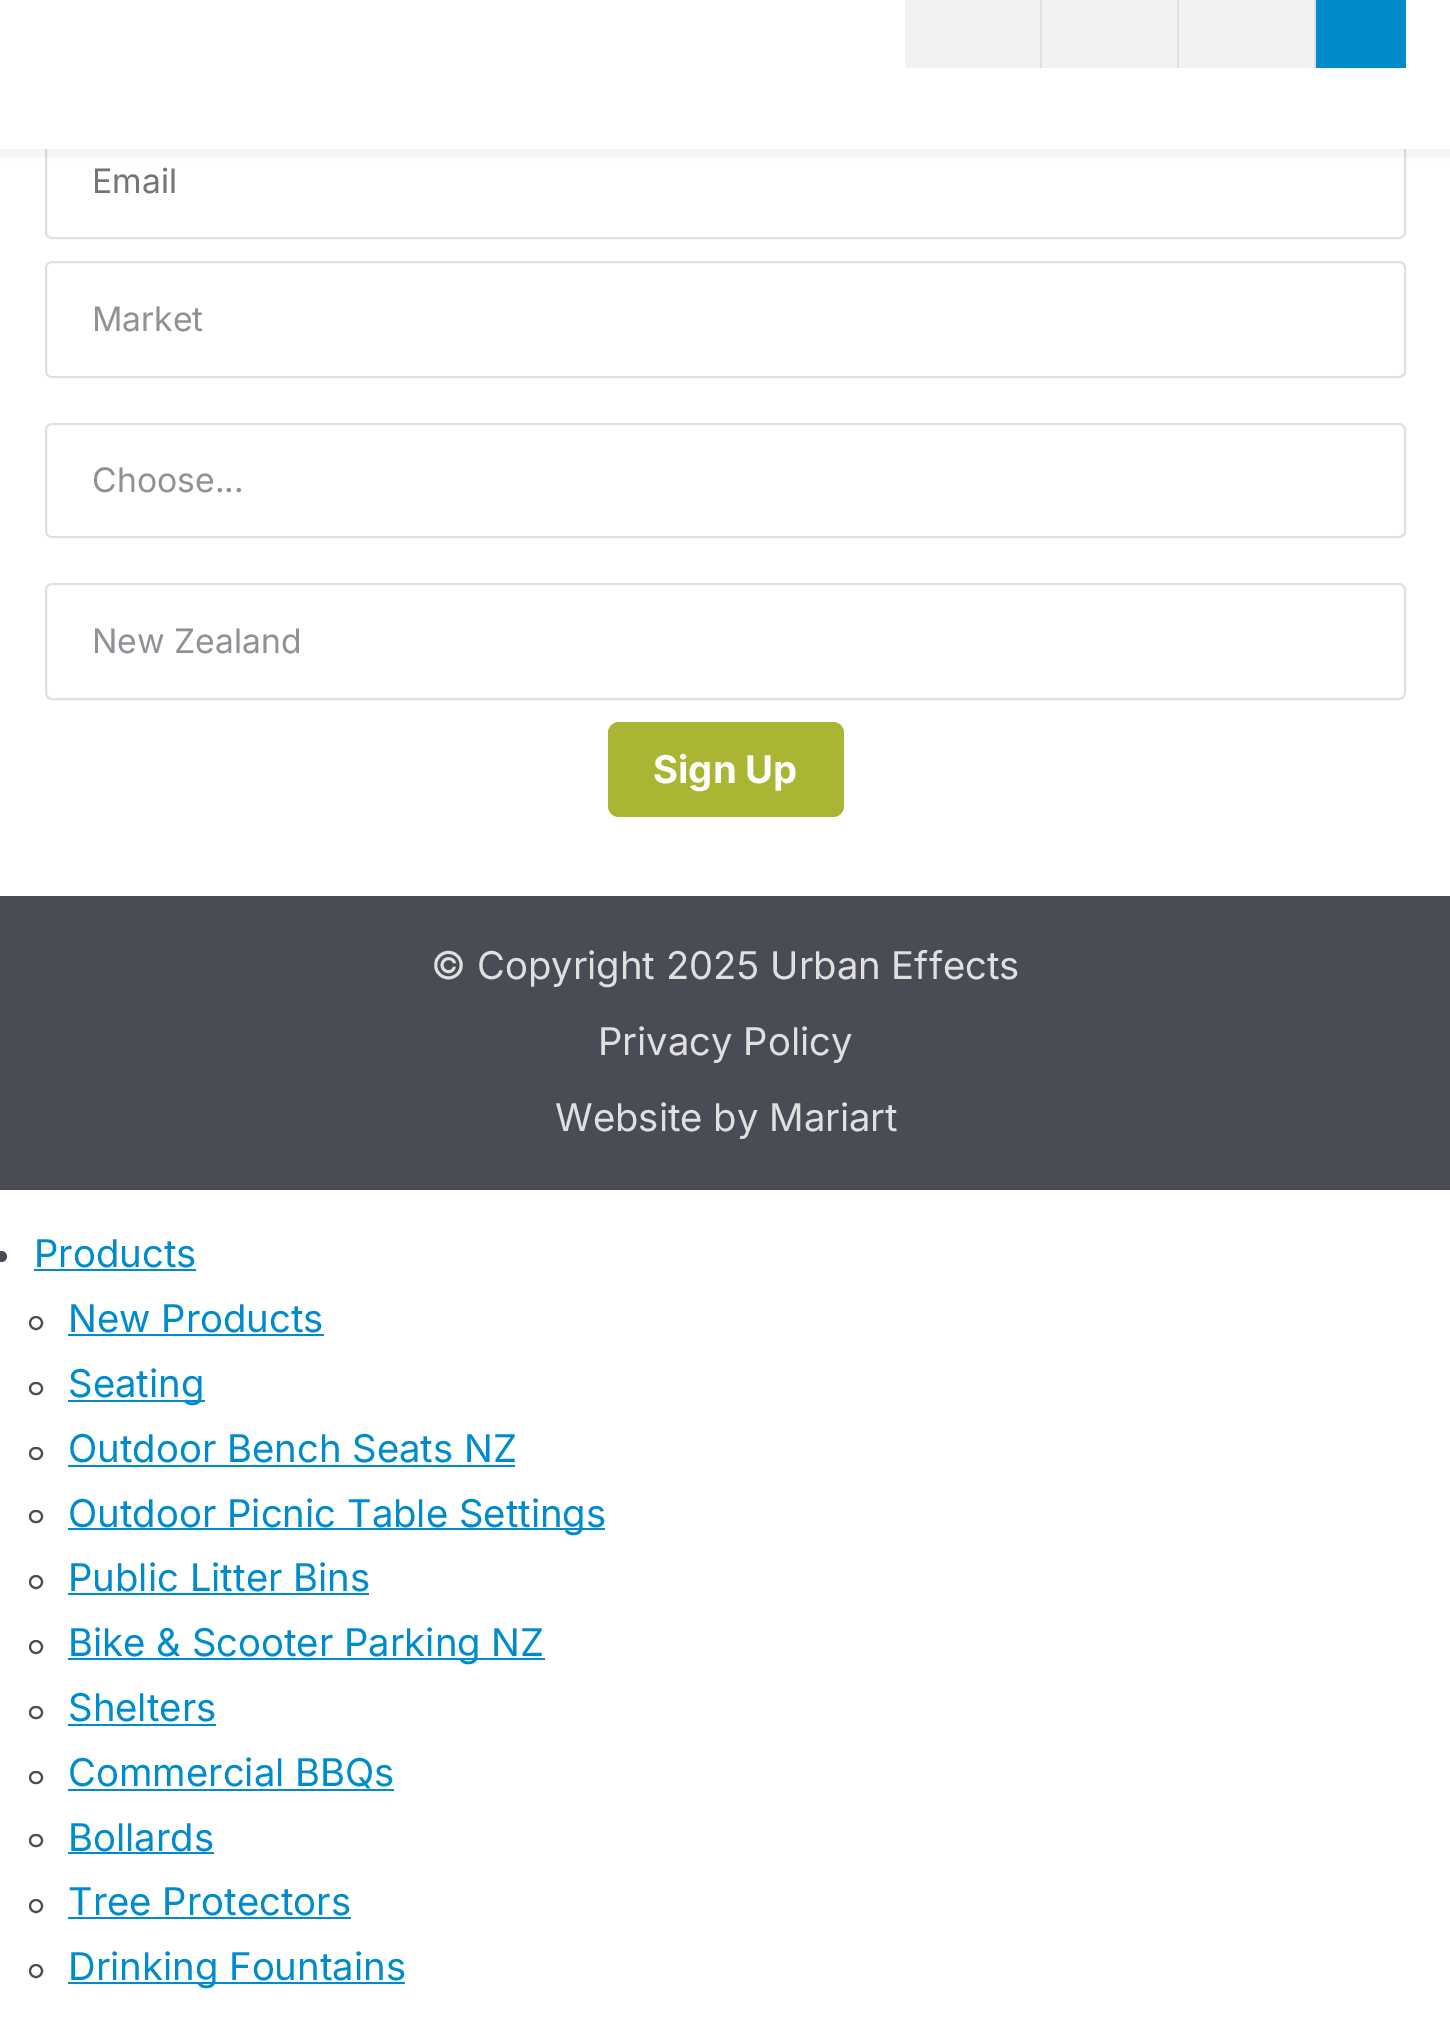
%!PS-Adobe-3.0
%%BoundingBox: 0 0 1450 2023
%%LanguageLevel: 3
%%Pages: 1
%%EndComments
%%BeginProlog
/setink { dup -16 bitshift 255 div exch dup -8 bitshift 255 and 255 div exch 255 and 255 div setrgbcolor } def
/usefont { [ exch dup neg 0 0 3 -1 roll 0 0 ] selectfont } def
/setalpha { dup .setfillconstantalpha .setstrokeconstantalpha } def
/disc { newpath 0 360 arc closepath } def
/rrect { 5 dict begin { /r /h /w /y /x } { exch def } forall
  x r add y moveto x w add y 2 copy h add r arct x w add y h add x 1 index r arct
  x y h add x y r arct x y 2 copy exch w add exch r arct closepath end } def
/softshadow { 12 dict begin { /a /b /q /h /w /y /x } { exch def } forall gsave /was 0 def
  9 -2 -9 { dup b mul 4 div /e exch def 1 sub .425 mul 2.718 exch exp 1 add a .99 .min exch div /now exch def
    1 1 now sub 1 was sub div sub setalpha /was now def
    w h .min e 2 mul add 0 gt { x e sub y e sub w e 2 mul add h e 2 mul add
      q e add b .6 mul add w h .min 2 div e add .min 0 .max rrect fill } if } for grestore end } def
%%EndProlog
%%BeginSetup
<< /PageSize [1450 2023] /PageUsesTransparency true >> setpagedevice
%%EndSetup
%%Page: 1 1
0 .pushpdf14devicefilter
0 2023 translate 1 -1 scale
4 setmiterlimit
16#FFFFFF setink
0 0 1450 2023 rectfill
16#E0E0E0 setink
2 setlinewidth
46 125 1359 113 6 rrect stroke
16#000000 setink
-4 0 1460 158 0 2 0.04 softshadow
[
    [0 0 1450 149 16#FFFFFF]
    [905 0 135 68 16#F2F2F2]
    [1040 0 2 68 16#E0E0E0]
    [1042 0 135 68 16#F2F2F2]
    [1177 0 2 68 16#E0E0E0]
    [1179 0 135 68 16#F2F2F2]
    [1314 0 2 68 16#E0E0E0]
    [1316 0 90 68 16#008CCC]
] { aload pop setink rectfill } forall
/Inter-Regular 33.75 usefont
16#757575 setink
92 193 moveto (Email) show
16#E0E0E0 setink
46 262 1359 115 6 rrect stroke
16#928F96 setink
92 331 moveto (Market) show
16#E0E0E0 setink
46 424 1359 113 6 rrect stroke
16#928F96 setink
92 492 moveto (Choose...) show
16#E0E0E0 setink
46 584 1359 115 6 rrect stroke
16#928F96 setink
92 653 moveto (New Zealand) show
16#A9B533 setink
608 722 236 95 11 rrect fill
/Inter-Bold 38.25 usefont
16#FFFFFF setink
653 783 moveto (Sign Up) show
16#494C55 setink
0 896 1450 294 rectfill
/Inter-Regular 38.25 usefont
16#E0E0E0 setink
[
    [(© Copyright 2025 Urban Effects) 431 979]
    [(Privacy Policy) 598 1055]
    [(Website by Mariart) 555 1131]
] { aload pop moveto show } forall
16#494C55 setink
1.5 1256.5 5.5 disc fill
16#008CCC setink
34 1267 moveto (Products) show
34 1269 162 2 rectfill
16#494C55 setink
36 1323 6 disc stroke
16#008CCC setink
68 1332 moveto (New Products) show
68 1334 256 2 rectfill
16#494C55 setink
30 1383 12 11 5.5 rrect stroke
16#008CCC setink
68 1400 137 2 rectfill
68 1397 moveto (Seating) show
16#494C55 setink
30 1448 12 11 5.5 rrect stroke
16#008CCC setink
68 1462 moveto (Outdoor Bench Seats NZ) show
68 1465 447 2 rectfill
16#494C55 setink
30 1511 12 11 5.5 rrect stroke
16#008CCC setink
68 1528 537 2 rectfill
68 1527 moveto (Outdoor Picnic Table Settings) show
16#494C55 setink
36 1582 6 disc stroke
16#008CCC setink
68 1591 moveto (Public Litter Bins) show
68 1593 301 2 rectfill
16#494C55 setink
36 1647 6 disc stroke
16#008CCC setink
68 1658 477 2 rectfill
68 1656 moveto (Bike & Scooter Parking NZ) show
16#494C55 setink
30 1707 12 11 5.5 rrect stroke
16#008CCC setink
68 1721 moveto (Shelters) show
68 1724 148 2 rectfill
16#494C55 setink
30 1772 12 11 5.5 rrect stroke
16#008CCC setink
68 1786 moveto (Commercial BBQs) show
68 1789 326 2 rectfill
16#494C55 setink
30 1835 12 11 5.5 rrect stroke
16#008CCC setink
68 1851 moveto (Bollards) show
68 1852 146 2 rectfill
16#494C55 setink
36 1906 6 disc stroke
16#008CCC setink
68 1915 moveto (Tree Protectors) show
68 1917 283 2 rectfill
16#494C55 setink
36 1971 6 disc stroke
16#008CCC setink
68 1982 337 2 rectfill
68 1980 moveto (Drinking Fountains) show
.poppdf14devicefilter showpage
%%EOF
